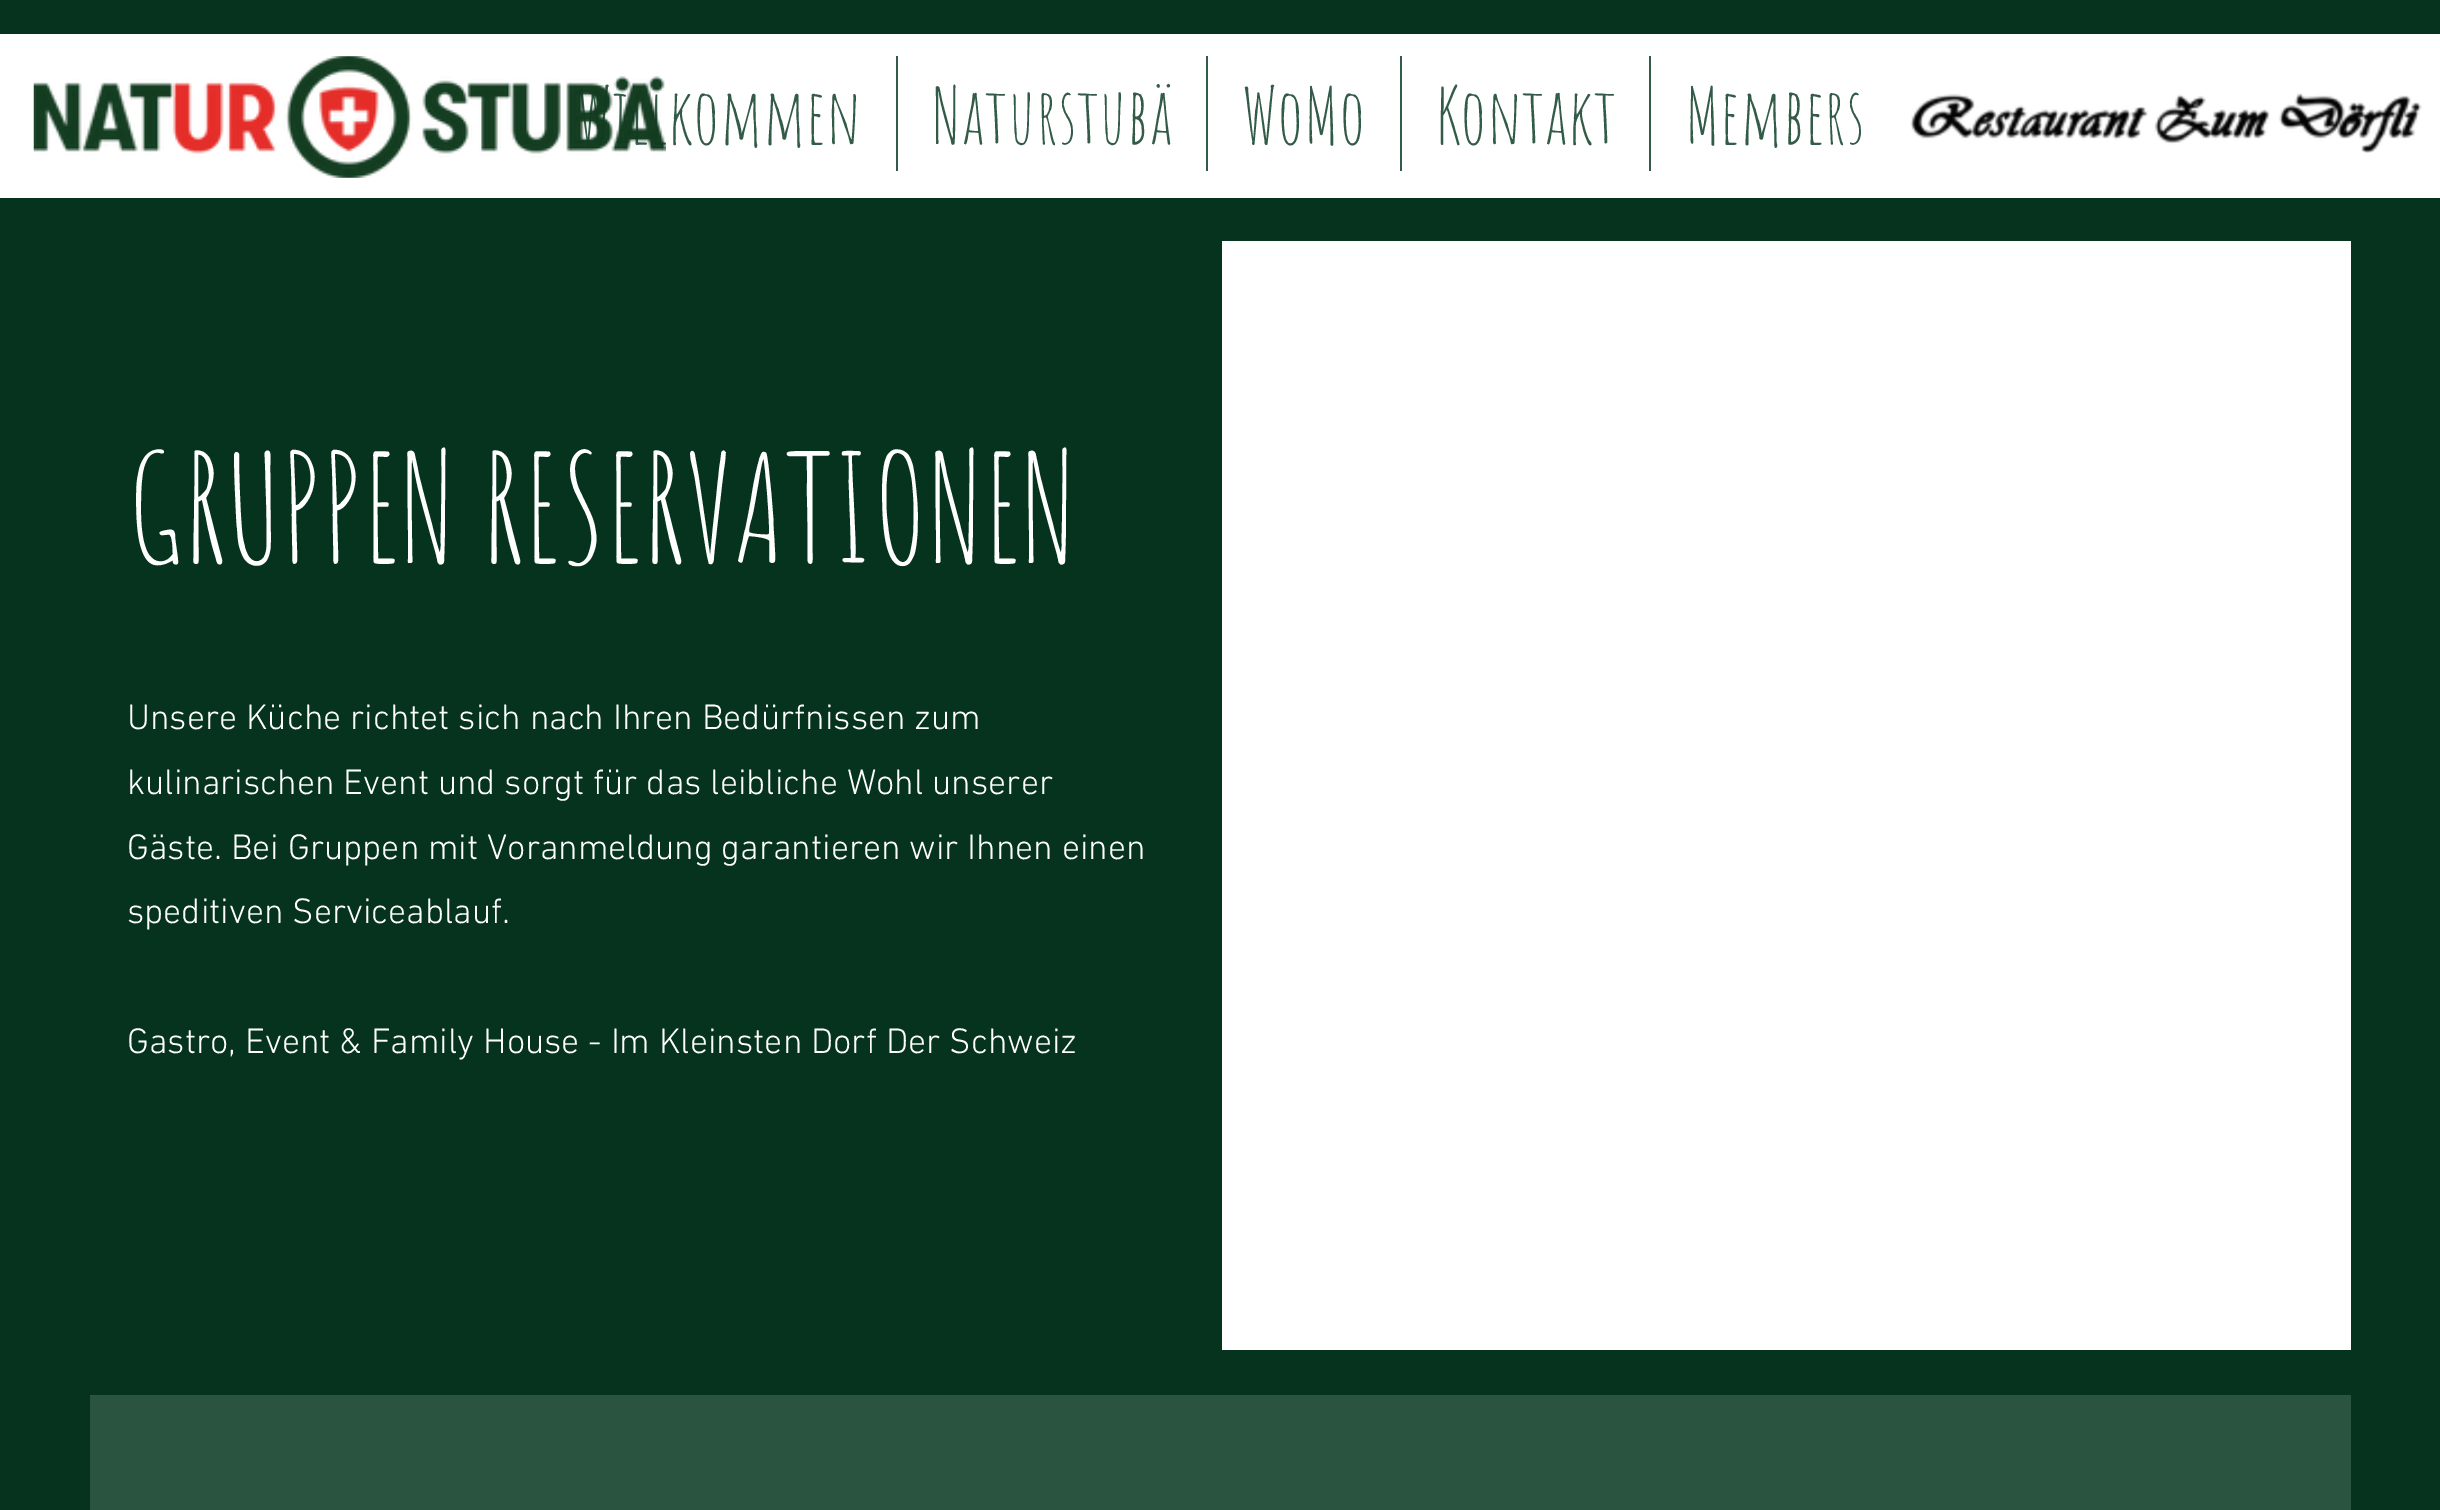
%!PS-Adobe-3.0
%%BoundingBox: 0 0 2440 1510
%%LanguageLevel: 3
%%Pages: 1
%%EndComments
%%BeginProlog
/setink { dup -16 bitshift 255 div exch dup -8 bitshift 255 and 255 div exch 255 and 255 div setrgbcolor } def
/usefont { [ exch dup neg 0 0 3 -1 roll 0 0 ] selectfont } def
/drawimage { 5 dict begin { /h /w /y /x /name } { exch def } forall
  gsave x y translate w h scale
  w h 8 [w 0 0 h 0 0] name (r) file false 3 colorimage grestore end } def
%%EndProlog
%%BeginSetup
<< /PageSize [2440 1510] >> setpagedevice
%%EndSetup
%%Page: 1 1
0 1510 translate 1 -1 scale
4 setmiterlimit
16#06331D setink
0 0 2440 1510 rectfill
16#FFFFFF setink
0 34 2440 164 rectfill
(img1.raw) 33 56 633 122 drawimage
/AmaticSC-Regular 76.5 usefont
16#335C48 setink
668 144 moveto (kommen) show
896 56 2 115 rectfill
932 144 moveto (Naturstubä) show
1206 56 2 115 rectfill
1242 144 moveto (WoMo) show
1400 56 2 115 rectfill
1436 144 moveto (Kontakt) show
1649 56 2 115 rectfill
1685 144 moveto (Members) show
(img2.raw) 1910 93 512 60 drawimage
/AmaticSC-Regular 148.5 usefont
16#FFFFFF setink
127 563 moveto (GRUPPEN RESERVATIONEN) show
/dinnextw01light-Light 36 usefont
[
    [(Unsere Küche richtet sich nach Ihren Bedürfnissen zum) 127 729]
    [(kulinarischen Event und sorgt für das leibliche Wohl unserer) 127 794]
    [(Gäste. Bei Gruppen mit Voranmeldung garantieren wir Ihnen einen) 127 859]
    [(speditiven Serviceablauf.) 127 923]
    [(Gastro, Event & Family House - Im Kleinsten Dorf Der Schweiz) 127 1053]
] { aload pop moveto show } forall
1222 241 1129 1109 rectfill
16#2A543F setink
90 1395 2261 115 rectfill
showpage
%%EOF
